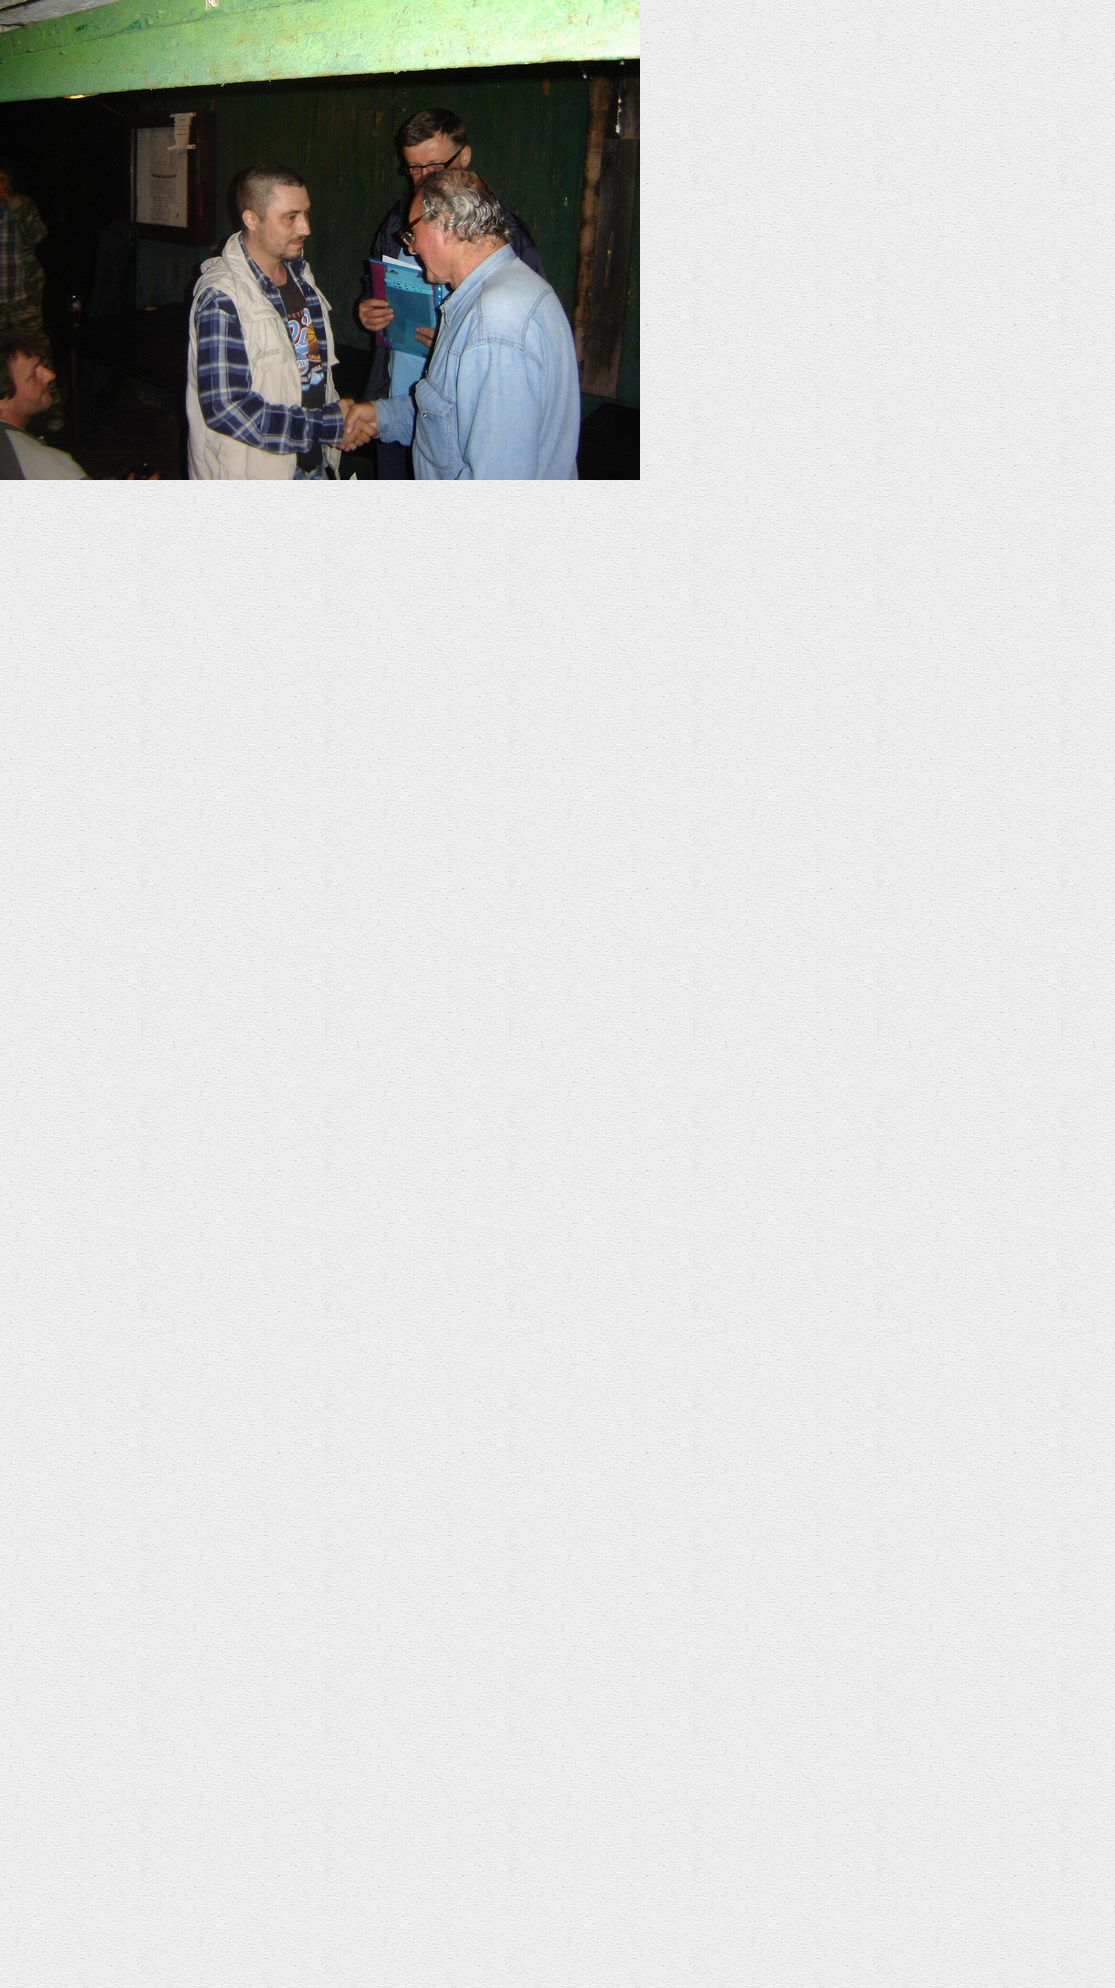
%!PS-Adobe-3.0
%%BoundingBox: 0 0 1115 1988
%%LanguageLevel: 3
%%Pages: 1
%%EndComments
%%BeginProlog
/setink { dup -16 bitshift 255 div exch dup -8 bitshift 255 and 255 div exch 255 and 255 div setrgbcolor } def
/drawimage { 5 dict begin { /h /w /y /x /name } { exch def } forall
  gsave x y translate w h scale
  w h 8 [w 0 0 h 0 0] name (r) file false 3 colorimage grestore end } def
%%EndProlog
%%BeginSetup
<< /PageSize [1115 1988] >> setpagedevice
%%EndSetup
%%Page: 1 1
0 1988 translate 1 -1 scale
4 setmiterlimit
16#FFFFFF setink
0 0 1115 1988 rectfill
(img1.raw) 0 0 1115 1988 drawimage
(img2.raw) 0 0 640 480 drawimage
showpage
%%EOF
